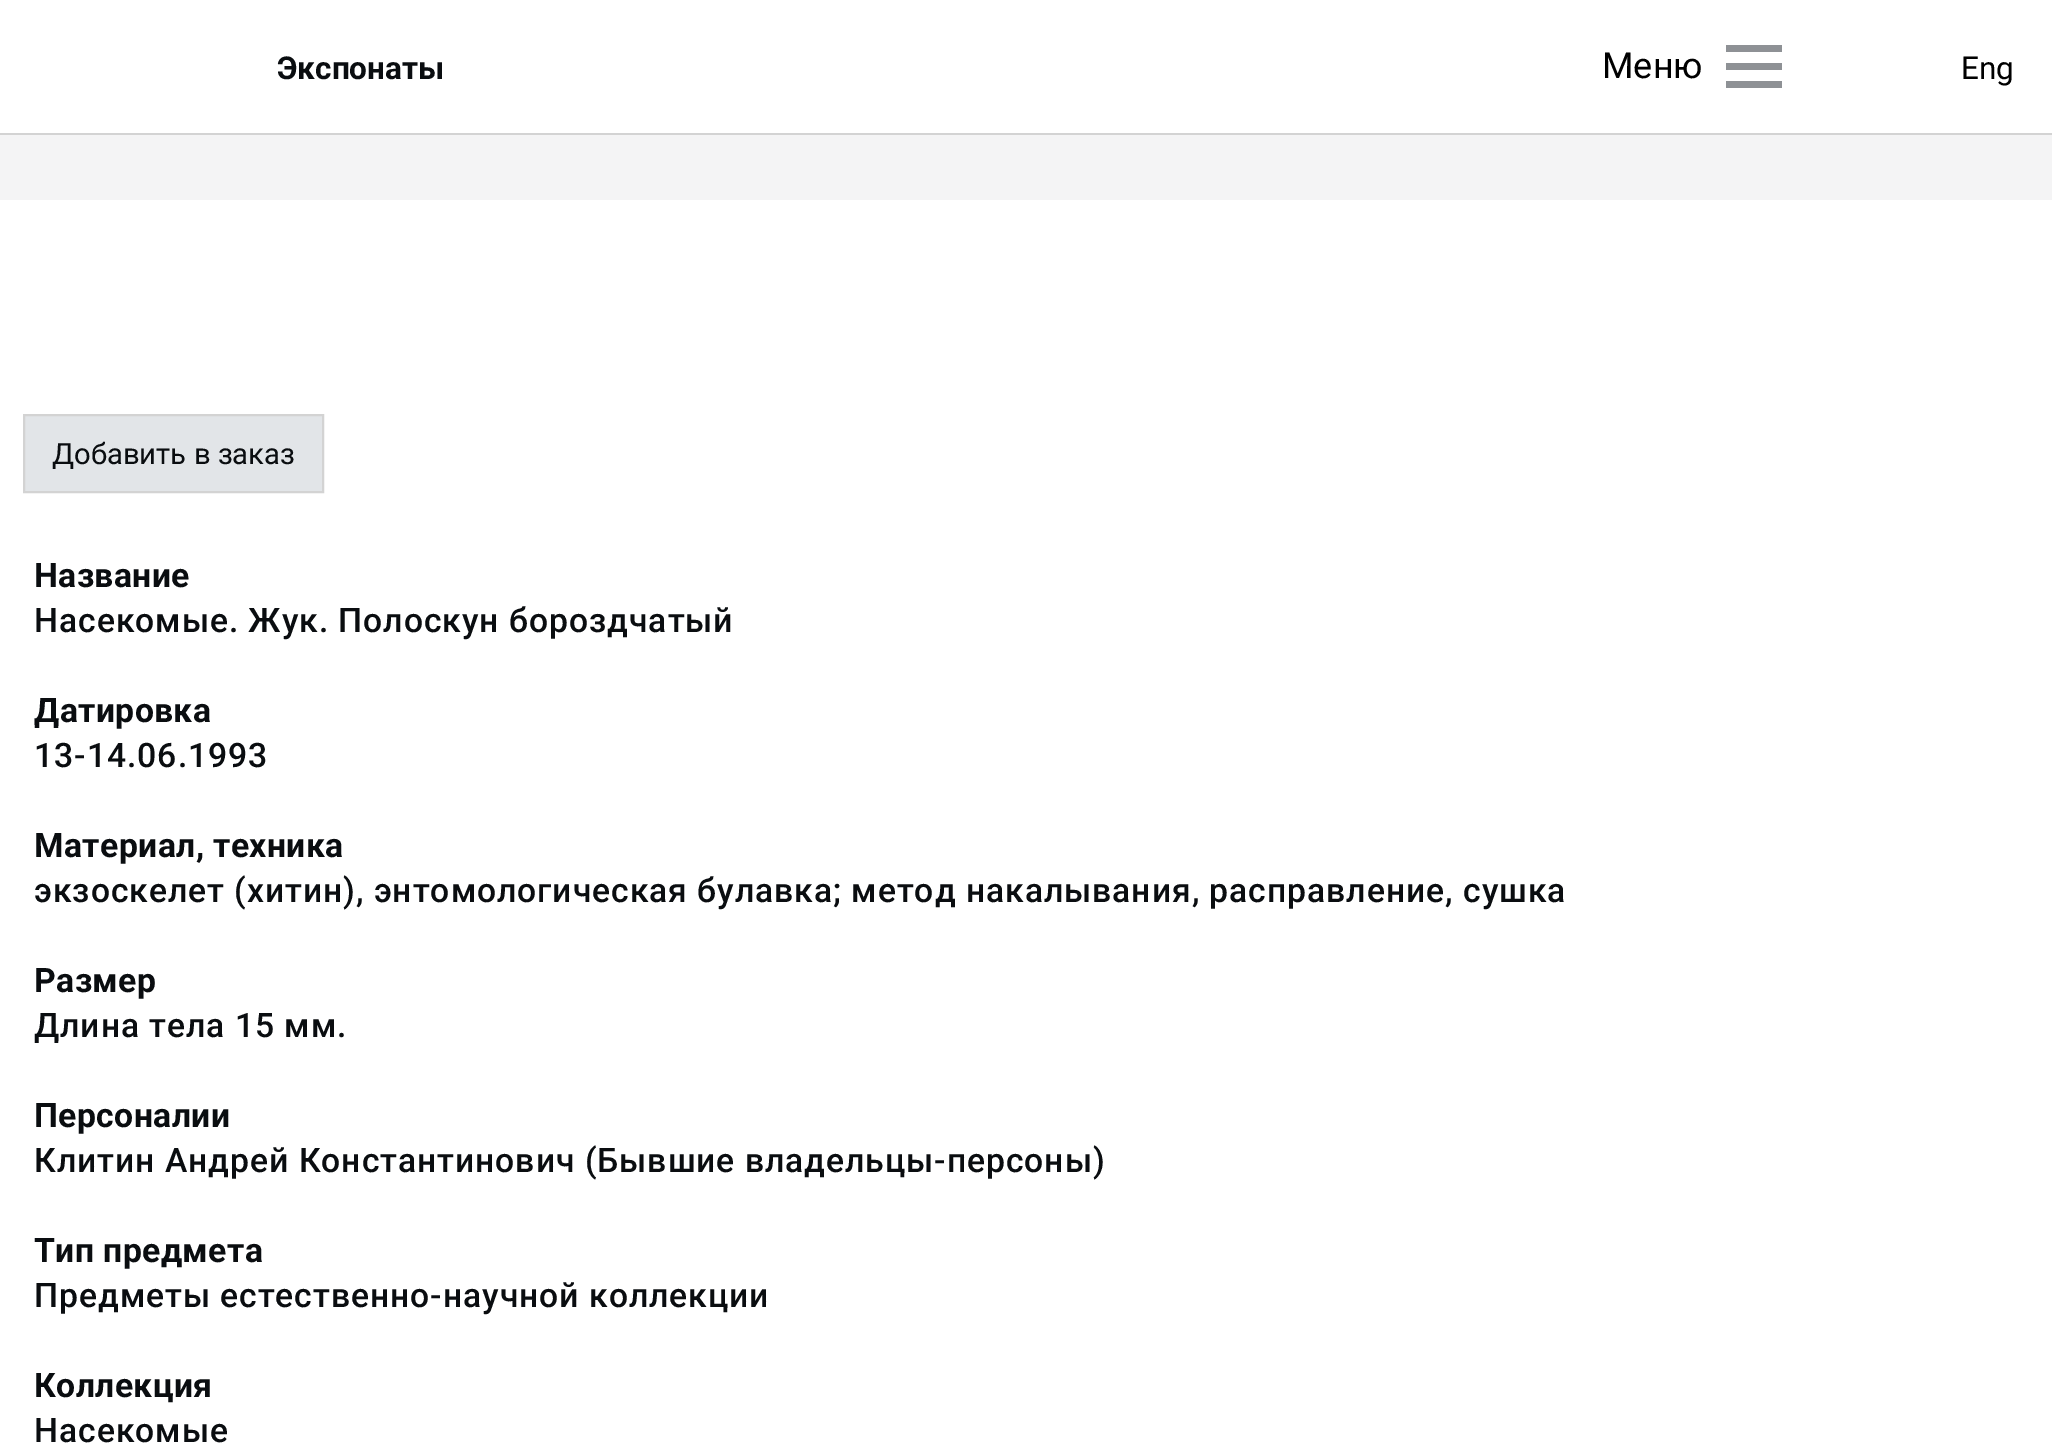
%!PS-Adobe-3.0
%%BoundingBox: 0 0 2052 1448
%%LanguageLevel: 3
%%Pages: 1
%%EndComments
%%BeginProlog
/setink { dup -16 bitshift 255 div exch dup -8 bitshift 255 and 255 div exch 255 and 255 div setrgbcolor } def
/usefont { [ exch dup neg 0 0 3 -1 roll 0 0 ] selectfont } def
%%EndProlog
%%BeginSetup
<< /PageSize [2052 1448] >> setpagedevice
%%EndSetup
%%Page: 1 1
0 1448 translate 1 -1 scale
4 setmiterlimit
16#FFFFFF setink
0 0 2052 1448 rectfill
16#D3D3D3 setink
0 133 2052 2 rectfill
/Roboto-Bold 31.5 usefont
16#0A0D10 setink
277 79 moveto (Экспонаты) show
16#8E9195 setink
1726 45 56 7 rectfill
/Roboto-Regular 36 usefont
16#000000 setink
1602 78 moveto (Меню) show
16#8E9195 setink
1726 63 56 7 rectfill
1726 81 56 7 rectfill
/Roboto-Regular 31.5 usefont
16#000000 setink
1961 79 moveto (Eng) show
16#F4F4F5 setink
0 135 2052 65 rectfill
16#E2E5E8 setink
24 415 moveto 323 415 lineto 323 492 lineto 24 492 lineto closepath gsave fill grestore
16#D3D3D3 setink
2 setlinewidth
stroke
/Roboto-Regular 29.25 usefont
16#0A0D10 setink
52 464 moveto (Добавить в заказ) show
/Roboto-Bold 33.75 usefont
34 587 moveto 0.4 0 (Название) ashow
/Roboto-Medium 33.75 usefont
34 632 moveto 0.95 0 (Насекомые. Жук. Полоскун бороздчатый) ashow
/Roboto-Bold 33.75 usefont
34 722 moveto 0.4 0 (Датировка) ashow
/Roboto-Medium 33.75 usefont
34 767 moveto 0.95 0 (13-14.06.1993) ashow
/Roboto-Bold 33.75 usefont
34 857 moveto 0.4 0 (Материал, техника) ashow
/Roboto-Medium 33.75 usefont
34 902 moveto 0.95 0 (экзоскелет \(хитин\), энтомологическая булавка; метод накалывания, расправление, сушка) ashow
/Roboto-Bold 33.75 usefont
34 992 moveto 0.4 0 (Размер) ashow
/Roboto-Medium 33.75 usefont
34 1037 moveto 0.95 0 (Длина тела 15 мм.) ashow
/Roboto-Bold 33.75 usefont
34 1127 moveto 0.4 0 (Персоналии) ashow
/Roboto-Medium 33.75 usefont
34 1172 moveto 0.95 0 (Клитин Андрей Константинович \(Бывшие владельцы-персоны\)) ashow
/Roboto-Bold 33.75 usefont
34 1262 moveto 0.4 0 (Тип предмета) ashow
/Roboto-Medium 33.75 usefont
34 1307 moveto 0.95 0 (Предметы естественно-научной коллекции) ashow
/Roboto-Bold 33.75 usefont
34 1397 moveto 0.4 0 (Коллекция) ashow
/Roboto-Medium 33.75 usefont
34 1442 moveto 0.95 0 (Насекомые) ashow
showpage
%%EOF
